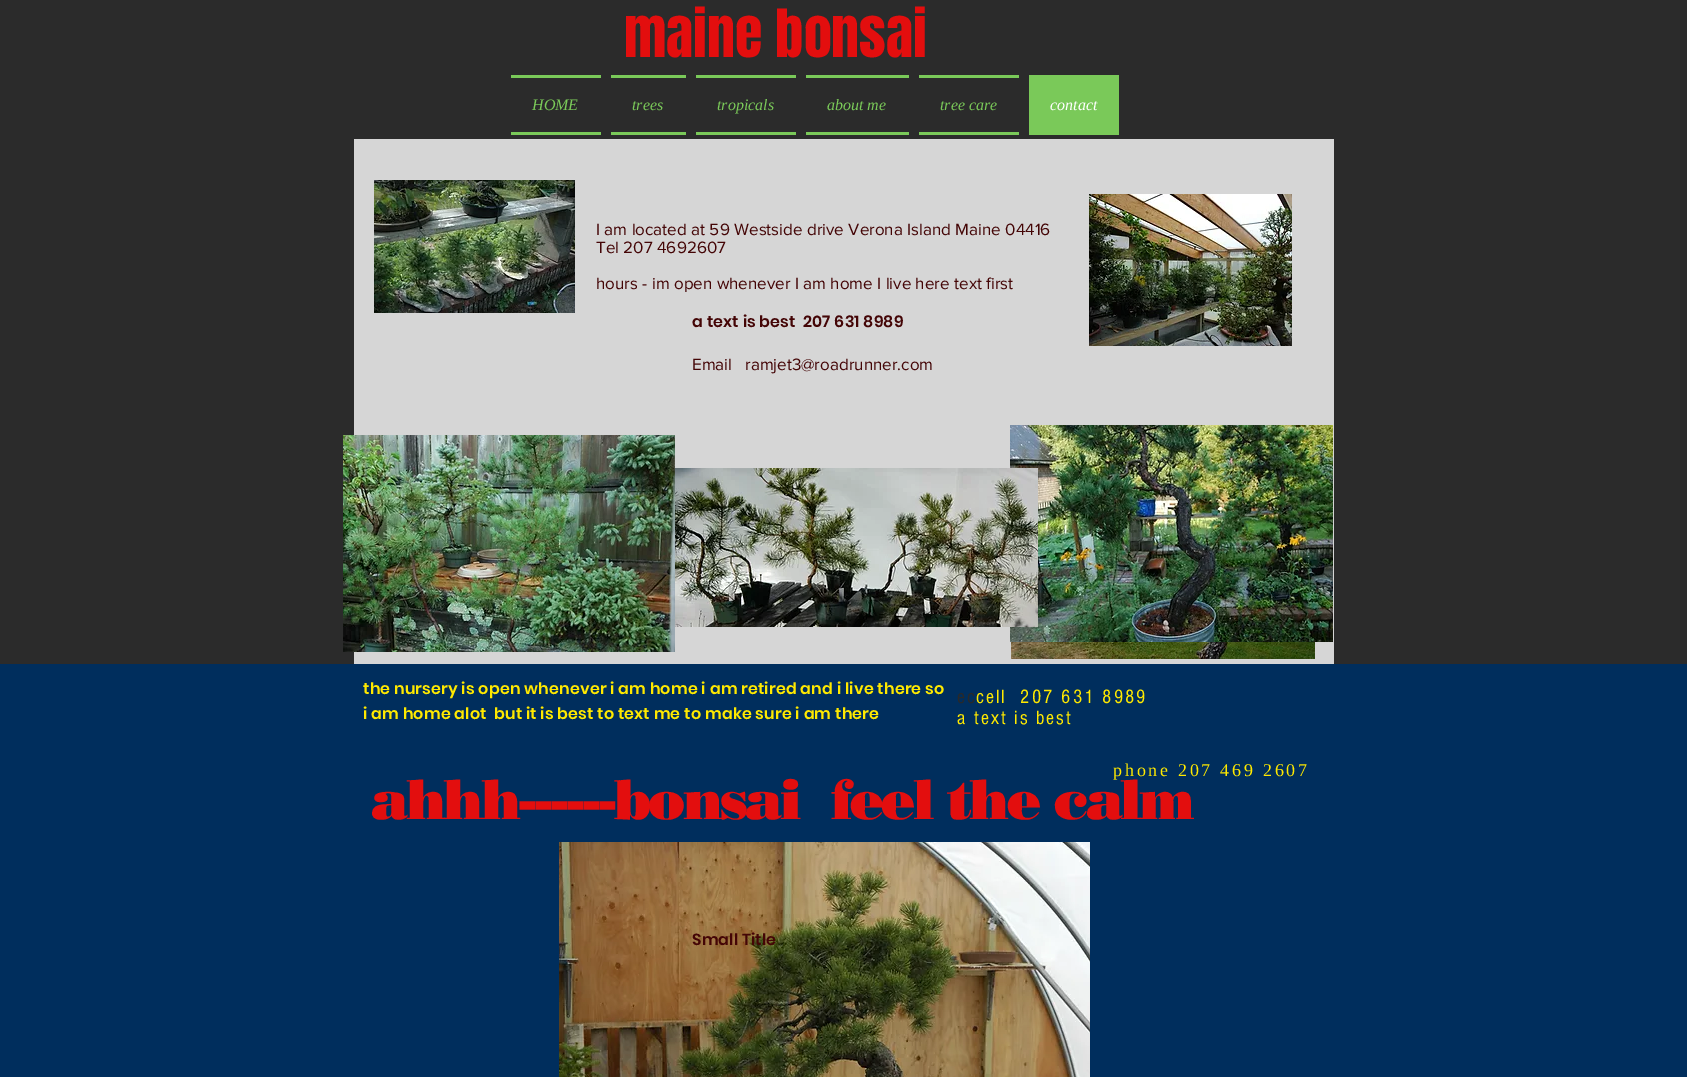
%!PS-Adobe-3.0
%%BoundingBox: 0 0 1687 1077
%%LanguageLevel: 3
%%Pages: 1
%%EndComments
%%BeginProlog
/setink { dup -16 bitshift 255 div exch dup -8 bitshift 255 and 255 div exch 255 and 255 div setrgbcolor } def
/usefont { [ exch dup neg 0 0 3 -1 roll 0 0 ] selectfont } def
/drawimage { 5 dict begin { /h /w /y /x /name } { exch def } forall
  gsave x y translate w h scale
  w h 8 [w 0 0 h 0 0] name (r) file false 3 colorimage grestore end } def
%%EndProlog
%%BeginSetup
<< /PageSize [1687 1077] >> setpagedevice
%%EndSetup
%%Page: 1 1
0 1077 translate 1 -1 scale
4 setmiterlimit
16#2B2B2B setink
0 0 1687 1077 rectfill
/Anton-Regular 56 usefont
16#E30E0E setink
624 57 moveto (maine bonsai) show
16#7AC959 setink
511 75 90 3 rectfill
511 132 90 3 rectfill
/LiberationSerif-Italic 16 usefont
532 110 moveto (HOME) show
611 75 75 3 rectfill
611 132 75 3 rectfill
632 110 moveto (trees) show
696 75 100 3 rectfill
696 132 100 3 rectfill
717 110 moveto (tropicals) show
806 75 103 3 rectfill
806 132 103 3 rectfill
827 110 moveto (about me) show
919 75 100 3 rectfill
919 132 100 3 rectfill
940 110 moveto (tree care) show
1029 75 90 60 rectfill
16#FFFFFF setink
1050 110 moveto (contact) show
16#D6D6D6 setink
354 139 980 525 rectfill
(img1.raw) 374 180 201 133 drawimage
/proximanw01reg-Regular 17 usefont
16#440506 setink
[
    [(I am located at 59 Westside drive Verona Island Maine 04416) 596 235]
    [(Tel 207 4692607) 596 253]
    [(hours - im open whenever I am home I live here text first) 596 289]
] { aload pop moveto show } forall
(img2.raw) 1089 194 203 152 drawimage
/Poppins-SemiBold 16 usefont
692 327 moveto 0.15 0 (a text is best  207 631 8989) ashow
/proximanw01reg-Regular 17 usefont
692 370 moveto (Email) show
745 370 moveto (ramjet3@roadrunner.com) show
(img3.raw) 343 435 332 217 drawimage
(img5.raw) 1010 425 323 217 drawimage
(img4.raw) 675 468 363 159 drawimage
(img6.raw) 1011 642 304 17 drawimage
16#002E5D setink
0 664 1687 413 rectfill
/Poppins-SemiBold 16 usefont
16#FFE900 setink
363 694 moveto 0.15 0 (the nursery is open whenever i am home i am retired and i live there so) ashow
363 719 moveto 0.15 0 (i am home alot  but it is best to text me to make sure i am there) ashow
/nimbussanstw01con-Regular 20 usefont
16#292929 setink
957 703 moveto 2 0 (ec) ashow
16#FFE900 setink
976 703 moveto 2 0 (cell  207 631 8989) ashow
957 724 moveto 2 0 (a text is best) ashow
/LiberationSerif-Regular 18 usefont
1113 776 moveto 2.75 0 (phone 207 469 2607) ashow
/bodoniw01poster-Black 56 usefont
16#E30E0E setink
371 819 moveto -2.8 0 (ahhh------bonsai  feel the calm) ashow
(img7.raw) 559 842 531 235 drawimage
/Poppins-SemiBold 16 usefont
16#440506 setink
692 945 moveto 0.15 0 (Small Title) ashow
showpage
%%EOF
